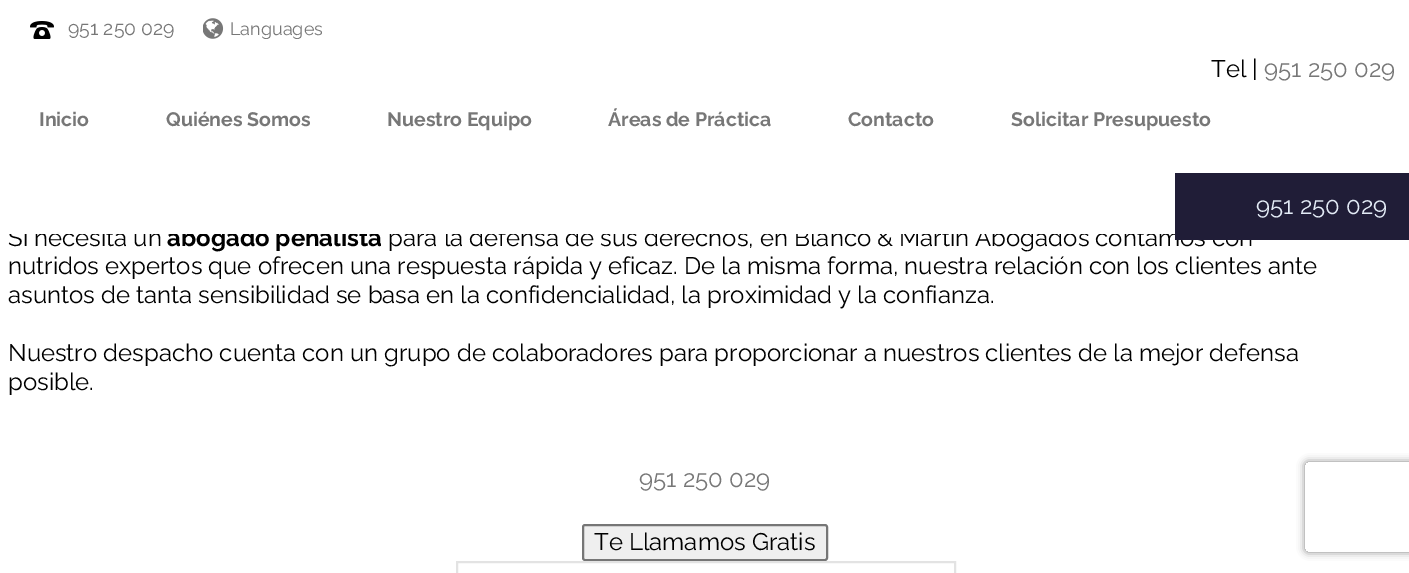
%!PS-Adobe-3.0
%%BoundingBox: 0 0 1409 573
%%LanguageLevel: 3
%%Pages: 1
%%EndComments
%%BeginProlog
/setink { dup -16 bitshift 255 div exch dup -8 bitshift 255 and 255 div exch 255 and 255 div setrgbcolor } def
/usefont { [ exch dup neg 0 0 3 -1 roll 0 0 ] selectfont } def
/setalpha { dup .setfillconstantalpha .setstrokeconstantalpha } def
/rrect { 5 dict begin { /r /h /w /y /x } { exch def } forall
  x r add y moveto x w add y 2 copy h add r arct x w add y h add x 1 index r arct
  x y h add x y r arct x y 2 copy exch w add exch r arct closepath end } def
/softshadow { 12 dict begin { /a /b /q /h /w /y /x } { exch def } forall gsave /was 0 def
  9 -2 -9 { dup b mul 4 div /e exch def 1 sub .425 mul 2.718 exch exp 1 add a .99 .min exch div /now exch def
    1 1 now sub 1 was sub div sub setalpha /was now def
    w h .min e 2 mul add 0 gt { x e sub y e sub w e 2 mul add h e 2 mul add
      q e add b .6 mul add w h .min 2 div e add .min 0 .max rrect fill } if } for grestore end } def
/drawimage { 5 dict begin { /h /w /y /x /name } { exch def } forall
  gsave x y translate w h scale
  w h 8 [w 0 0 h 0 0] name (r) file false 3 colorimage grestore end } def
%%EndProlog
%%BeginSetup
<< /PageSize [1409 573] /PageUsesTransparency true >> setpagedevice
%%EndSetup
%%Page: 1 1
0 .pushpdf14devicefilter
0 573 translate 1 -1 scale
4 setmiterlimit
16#FFFFFF setink
0 0 1409 573 rectfill
(img1.raw) 30 21 24 18 drawimage
/Raleway-Regular 19.5 usefont
16#777777 setink
68 35 moveto (951 250 029) show
(img2.raw) 203 18 21 21 drawimage
/Raleway-Regular 18 usefont
230 35 moveto (Languages) show
/Raleway-Regular 24 usefont
16#000000 setink
1211 77 moveto (Tel |) show
16#777777 setink
1264 77 moveto (951 250 029) show
/Raleway-Bold 19.5 usefont
[
    [(Inicio) 39 126]
    [(Quiénes Somos) 166 126]
    [(Nuestro Equipo) 387 126]
    [(Áreas de Práctica) 608 126]
    [(Contacto) 848 126]
    [(Solicitar Presupuesto) 1011 126]
] { aload pop moveto show } forall
/Raleway-Regular 24 usefont
16#000000 setink
8 246 moveto (Si necesita un) show
/Raleway-Bold 24 usefont
167 246 moveto (abogado penalista) show
/Raleway-Regular 24 usefont
388 246 moveto (para la defensa de sus derechos, en Blanco & Martín Abogados contamos con) show
16#FFFFFF setink
8 228 1243 6 rectfill
16#000000 setink
[
    [(nutridos expertos que ofrecen una respuesta rápida y eficaz. De la misma forma, nuestra relación con los clientes ante) 8 274]
    [(asuntos de tanta sensibilidad se basa en la confidencialidad, la proximidad y la confianza.) 8 303]
    [(Nuestro despacho cuenta con un grupo de colaboradores para proporcionar a nuestros clientes de la mejor defensa) 8 361]
    [(posible.) 8 390]
] { aload pop moveto show } forall
16#777777 setink
639 487 moveto (951 250 029) show
16#EFEFEF setink
583 525 244 35 2 rrect gsave fill grestore
16#767676 setink
2 setlinewidth
stroke
16#000000 setink
594 550 moveto (Te Llamamos Gratis) show
16#E3E3E3 setink
457 562 498 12 rectstroke
16#201D37 setink
1175 173 234 67 rectfill
16#E3EBF6 setink
1256 214 moveto (951 250 029) show
gsave
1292 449 moveto 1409 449 lineto 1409 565 lineto 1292 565 lineto closepath 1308 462 moveto 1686 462 lineto 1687.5 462 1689 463.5 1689 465 curveto 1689 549 lineto 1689 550.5 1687.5 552 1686 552 curveto 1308 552 lineto 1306.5 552 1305 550.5 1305 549 curveto 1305 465 lineto 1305 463.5 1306.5 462 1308 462 curveto closepath eoclip newpath
16#808080 setink
1305 462 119 90 3 4 1 softshadow
grestore
.poppdf14devicefilter showpage
%%EOF
